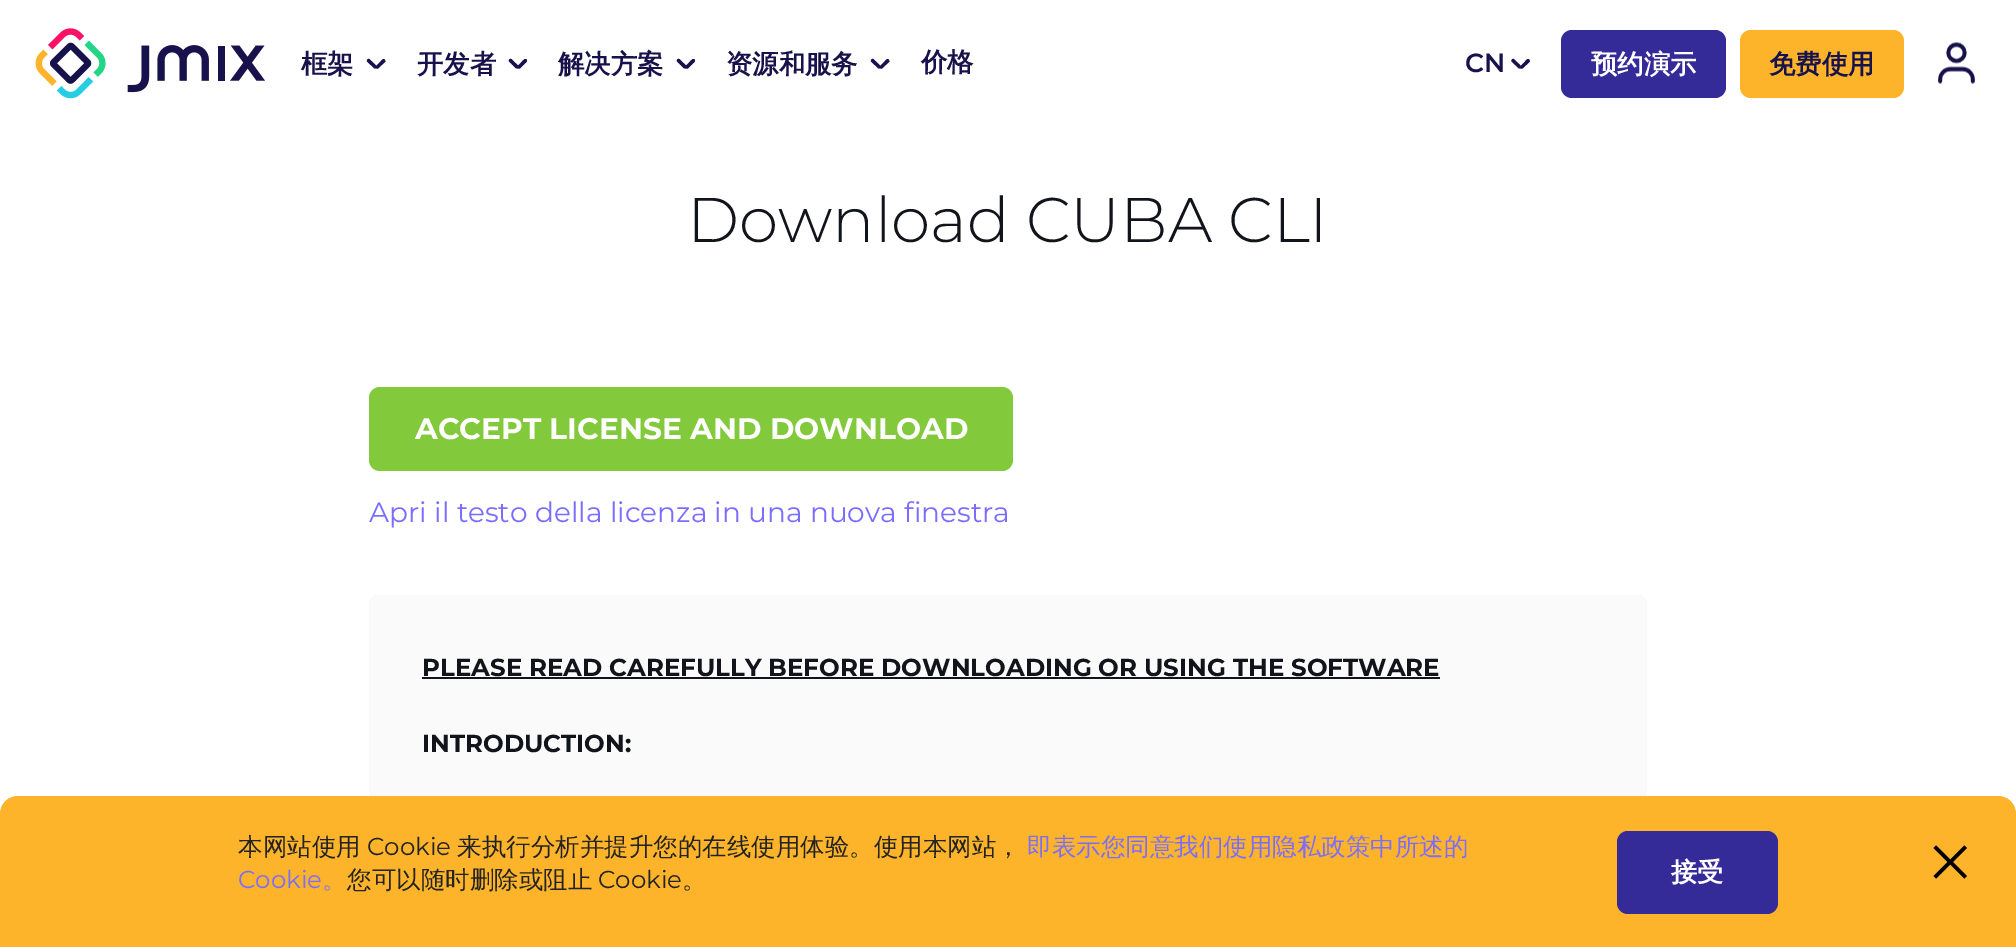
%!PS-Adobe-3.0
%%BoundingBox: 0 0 2016 947
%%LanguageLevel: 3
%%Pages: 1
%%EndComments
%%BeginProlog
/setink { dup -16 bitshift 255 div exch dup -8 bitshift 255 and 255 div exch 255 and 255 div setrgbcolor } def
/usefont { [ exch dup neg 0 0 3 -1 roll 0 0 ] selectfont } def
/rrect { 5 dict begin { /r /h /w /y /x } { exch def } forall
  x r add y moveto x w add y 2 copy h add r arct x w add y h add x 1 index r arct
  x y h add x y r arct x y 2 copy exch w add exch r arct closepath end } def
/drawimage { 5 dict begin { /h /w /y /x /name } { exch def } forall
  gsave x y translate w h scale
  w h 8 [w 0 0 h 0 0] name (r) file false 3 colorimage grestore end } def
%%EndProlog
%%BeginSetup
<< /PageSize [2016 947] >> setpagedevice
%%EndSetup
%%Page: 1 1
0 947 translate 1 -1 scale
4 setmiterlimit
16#FFFFFF setink
0 0 2016 947 rectfill
(img1.raw) 35 28 230 71 drawimage
/WenQuanYiZenHei-Bold 26.25 usefont
16#17124B setink
301 73 moveto (框架) show
370 59.5 moveto 374 63.5 lineto 375 64.5 378 67 376 68.5 curveto 374.5 68.5 lineto 367 61.5 lineto 366.5 59.5 368.5 58 370 59.5 curveto closepath fill
376.5 65.5 moveto 380.5 61.5 lineto 381.5 60.5 383.5 57.5 385 60 curveto 385.5 61.5 lineto 378 68.5 lineto 376.5 69.5 375 67 376.5 65.5 curveto closepath fill
417 73 moveto (开发者) show
512 59.5 moveto 516 63.5 lineto 517 64.5 520 67 517.5 68.5 curveto 516 68.5 lineto 509 61.5 lineto 508 59.5 510.5 58 512 59.5 curveto closepath fill
518 65.5 moveto 522 61.5 lineto 523 60.5 525.5 57.5 527 60 curveto 527 61.5 lineto 520 68.5 lineto 518 69.5 516.5 67 518 65.5 curveto closepath fill
558 73 moveto (解决方案) show
680 59.5 moveto 684 63.5 lineto 685 64.5 688 67 685.5 68.5 curveto 684 68.5 lineto 677 61.5 lineto 676 59.5 678.5 58 680 59.5 curveto closepath fill
686 65.5 moveto 690 61.5 lineto 691 60.5 693.5 57.5 695 60 curveto 695 61.5 lineto 688 68.5 lineto 686 69.5 684.5 67 686 65.5 curveto closepath fill
726 73 moveto (资源和服务) show
874 59.5 moveto 878 63.5 lineto 879 64.5 882 67 880 68.5 curveto 878.5 68.5 lineto 871 61.5 lineto 870.5 59.5 872.5 58 874 59.5 curveto closepath fill
880.5 65.5 moveto 884.5 61.5 lineto 885.5 60.5 887.5 57.5 889 60 curveto 889.5 61.5 lineto 882 68.5 lineto 880.5 69.5 879 67 880.5 65.5 curveto closepath fill
921 71 moveto (价格) show
/Montserrat-SemiBold 26.25 usefont
1465 72 moveto (CN) show
1514.5 59.5 moveto 1518.5 63.5 lineto 1519.5 64.5 1522.5 67 1520.5 68.5 curveto 1519 68.5 lineto 1511.5 61.5 lineto 1511 59.5 1513 58 1514.5 59.5 curveto closepath fill
1521 65.5 moveto 1525 61.5 lineto 1526 60.5 1528 57.5 1529.5 60 curveto 1530 61.5 lineto 1522.5 68.5 lineto 1521 69.5 1519.5 67 1521 65.5 curveto closepath fill
16#342A98 setink
1561 30 165 68 11 rrect fill
/WenQuanYiZenHei-Bold 26.25 usefont
16#FFFFFF setink
1591 73 moveto (预约演示) show
16#FDB42B setink
1740 30 164 68 11 rrect fill
16#17124B setink
1769 73 moveto (免费使用) show
(img2.raw) 1938 42 37 42 drawimage
/Montserrat-Light 63 usefont
16#11151B setink
687 242 moveto (Download CUBA CLI) show
16#83C93C setink
369 387 644 84 11 rrect fill
/Montserrat-Bold 29.75 usefont
16#FFFFFF setink
415 439 moveto (ACCEPT LICENSE AND DOWNLOAD) show
/Montserrat-Regular 28 usefont
16#7B6DFF setink
369 522 moveto (Apri il testo della licenza in una nuova finestra) show
16#FAFAFA setink
369 595 1278 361 9 rrect fill
/Montserrat-Bold 24.5 usefont
16#11151B setink
422 676 moveto (PLEASE READ CAREFULLY BEFORE DOWNLOADING OR USING THE SOFTWARE) show
422 677 1018 2 rectfill
422 752 moveto (INTRODUCTION:) show
16#FDB42A setink
18 796 moveto 1998 796 lineto 2008 796 2016 804 2016 814 curveto 2016 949 lineto 0 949 lineto 0 814 lineto 0 804 8 796 18 796 curveto closepath fill
/WenQuanYiZenHei-Medium 24.5 usefont
16#232323 setink
238 855 moveto (本网站使用) show
/Montserrat-Regular 24.5 usefont
367 855 moveto (Cookie) show
/WenQuanYiZenHei-Medium 24.5 usefont
457 855 moveto (来执行分析并提升您的在线使用体验。使用本网站，) show
16#7B6DFF setink
1027 855 moveto (即表示您同意我们使用隐私政策中所述的) show
/Montserrat-Regular 24.5 usefont
238 888 moveto (Cookie) show
/WenQuanYiZenHei-Medium 24.5 usefont
322 888 moveto (。) show
16#232323 setink
347 888 moveto (您可以随时删除或阻止) show
/Montserrat-Regular 24.5 usefont
598 888 moveto (Cookie) show
/WenQuanYiZenHei-Medium 24.5 usefont
682 888 moveto (。) show
16#342A98 setink
1617 831 161 83 11 rrect fill
/WenQuanYiZenHei-Bold 26.25 usefont
16#FFFFFF setink
1671 881 moveto (接受) show
16#000000 setink
1936 845.5 moveto 1967 876 lineto 1964.5 878.5 lineto 1933.5 848 lineto closepath fill
1933.5 876 moveto 1964.5 845.5 lineto 1967 848 lineto 1936 878.5 lineto closepath fill
showpage
%%EOF
